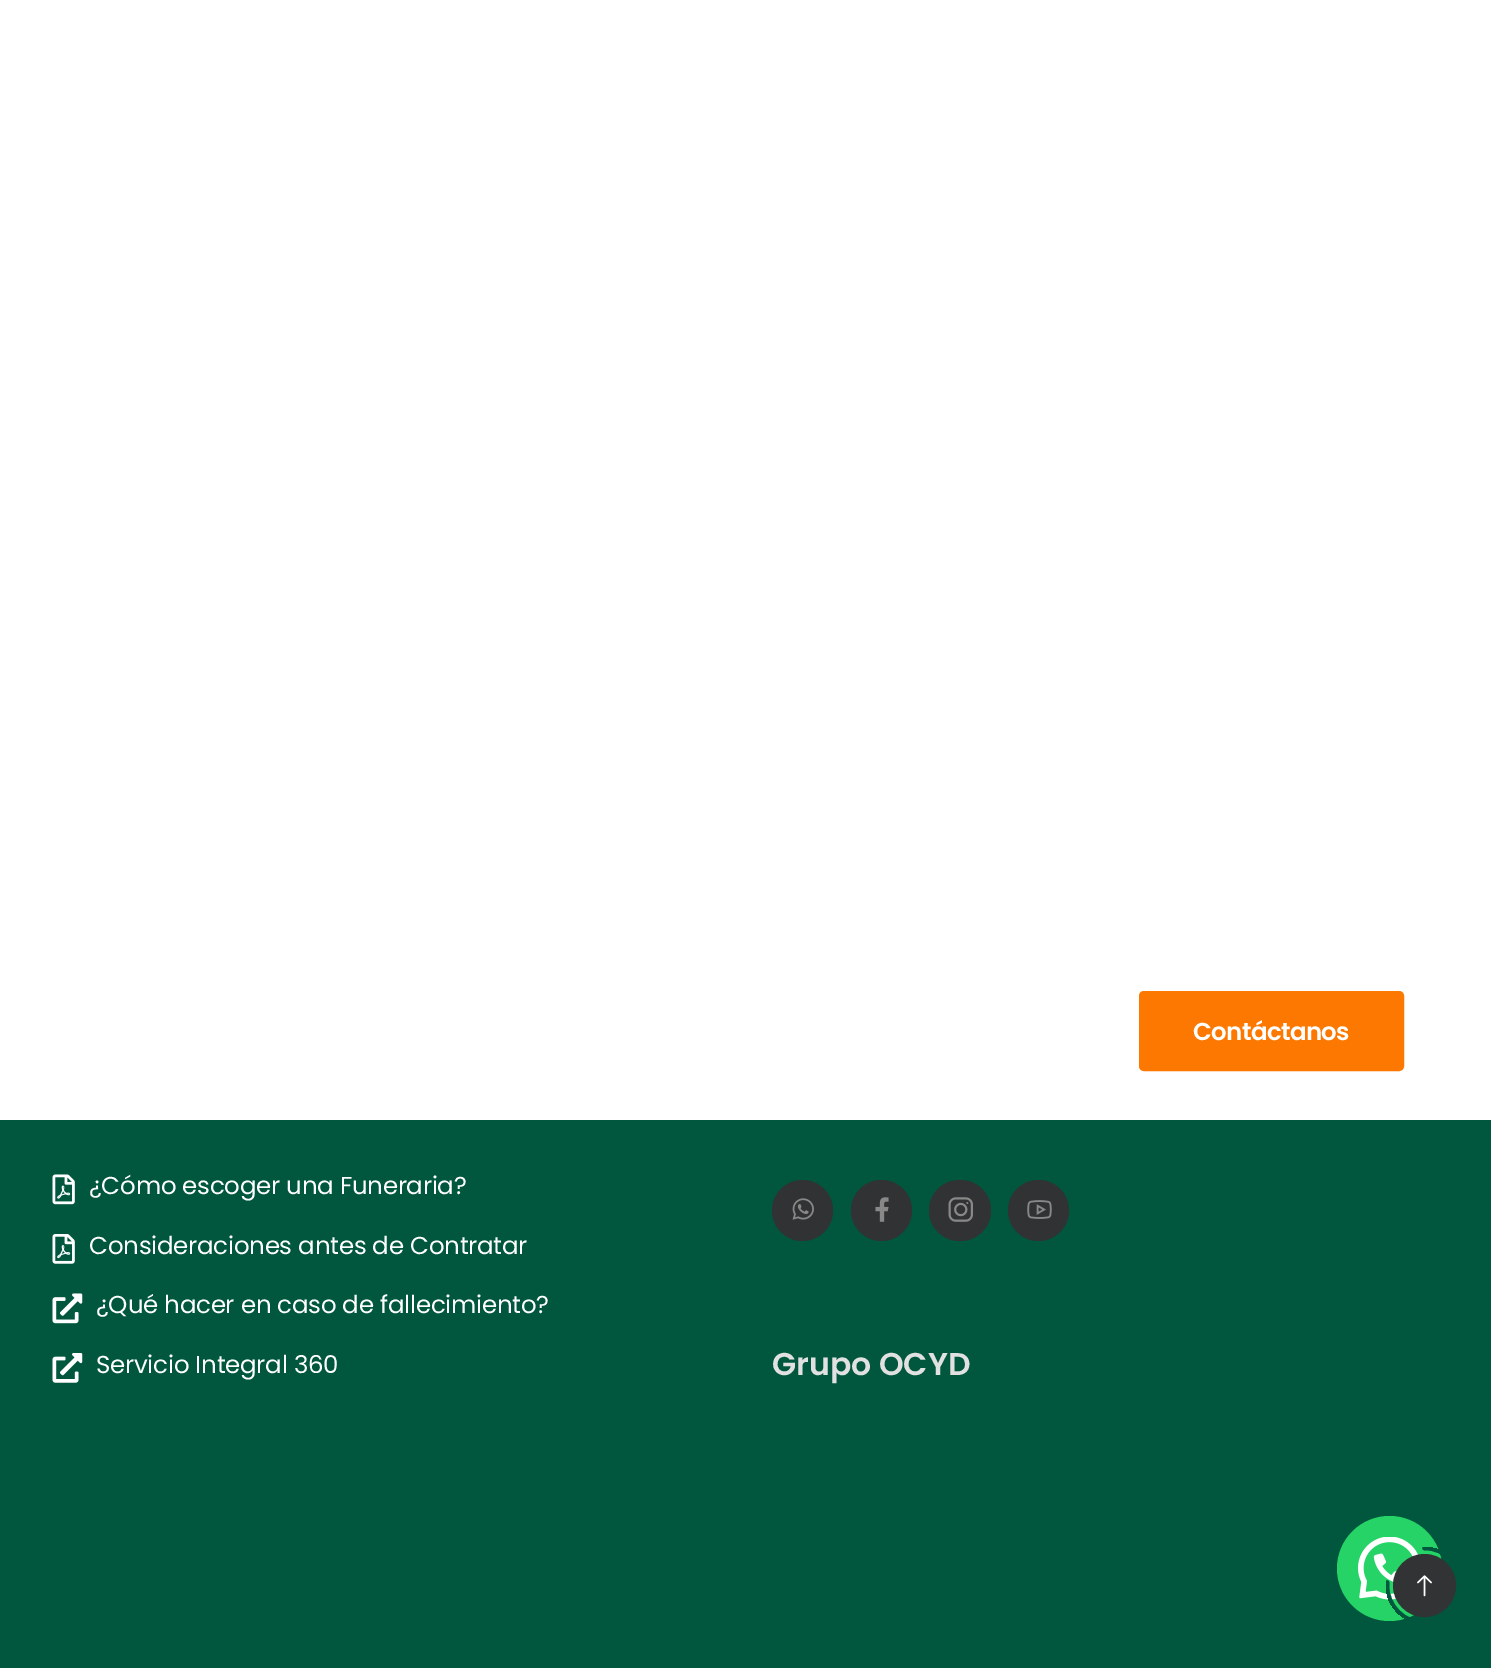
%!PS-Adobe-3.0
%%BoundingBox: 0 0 1491 1668
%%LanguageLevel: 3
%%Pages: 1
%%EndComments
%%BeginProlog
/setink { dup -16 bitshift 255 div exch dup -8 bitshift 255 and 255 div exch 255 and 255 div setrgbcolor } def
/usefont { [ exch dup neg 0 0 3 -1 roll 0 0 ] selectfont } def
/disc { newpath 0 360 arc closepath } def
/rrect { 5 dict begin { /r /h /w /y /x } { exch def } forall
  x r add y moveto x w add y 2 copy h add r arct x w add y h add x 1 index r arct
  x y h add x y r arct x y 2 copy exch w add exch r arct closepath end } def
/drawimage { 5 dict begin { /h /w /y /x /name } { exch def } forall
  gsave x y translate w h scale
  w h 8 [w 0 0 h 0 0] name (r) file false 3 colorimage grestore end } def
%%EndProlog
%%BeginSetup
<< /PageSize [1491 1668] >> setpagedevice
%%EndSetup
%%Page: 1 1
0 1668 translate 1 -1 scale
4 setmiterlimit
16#00573D setink
0 0 1491 1668 rectfill
16#FFFFFF setink
0 0 1491 1120 rectfill
16#FD7800 setink
1141 993 261 76 3 rrect gsave fill grestore
4 setlinewidth
stroke
/Poppins-SemiBold 24.5 usefont
16#FFFFFF setink
1193 1040 moveto -0.6 0 (Contáctanos) ashow
(img1.raw) 52 1174 23 31 drawimage
/Poppins-Regular 24.5 usefont
89 1194 moveto -0.25 0 (¿Cómo escoger una Funeraria?) ashow
(img2.raw) 52 1234 23 30 drawimage
89 1254 moveto -0.25 0 (Consideraciones antes de Contratar) ashow
(img3.raw) 52 1293 31 31 drawimage
96 1313 moveto -0.25 0 (¿Qué hacer en caso de fallecimiento?) ashow
(img4.raw) 52 1353 31 30 drawimage
96 1373 moveto -0.25 0 (Servicio Integral 360) ashow
16#313233 setink
802.5 1210.5 30.5 disc fill
(img5.raw) 792 1198 22 22 drawimage
881.5 1210.5 30.5 disc fill
(img6.raw) 875 1197 14 25 drawimage
929 1180 62 61 30.5 rrect fill
(img7.raw) 948 1197 25 25 drawimage
1038.5 1210.5 30.5 disc fill
(img8.raw) 1027 1200 25 19 drawimage
/Poppins-SemiBold 31.5 usefont
16#E1E1E1 setink
772 1375 moveto (Grupo OCYD) show
16#25D366 setink
1389.5 1568.5 52.5 disc fill
(img9.raw) 1358 1537 61 63 drawimage
gsave
1386 1547 77 77 38.5 rrect clip newpath
16#00573D setink
4.4 setlinewidth
1 setlinecap
1424.5 1548 moveto 1445 1548 1462 1565 1462 1585.5 curveto 1462 1606 1445 1623 1424.5 1623 curveto 1404 1623 1387 1606 1387 1585.5 curveto 1387 1582.5 lineto stroke
grestore
16#323334 setink
1424.5 1585.5 29.5 disc gsave fill grestore
stroke
(img10.raw) 1417 1575 15 22 drawimage
showpage
%%EOF
